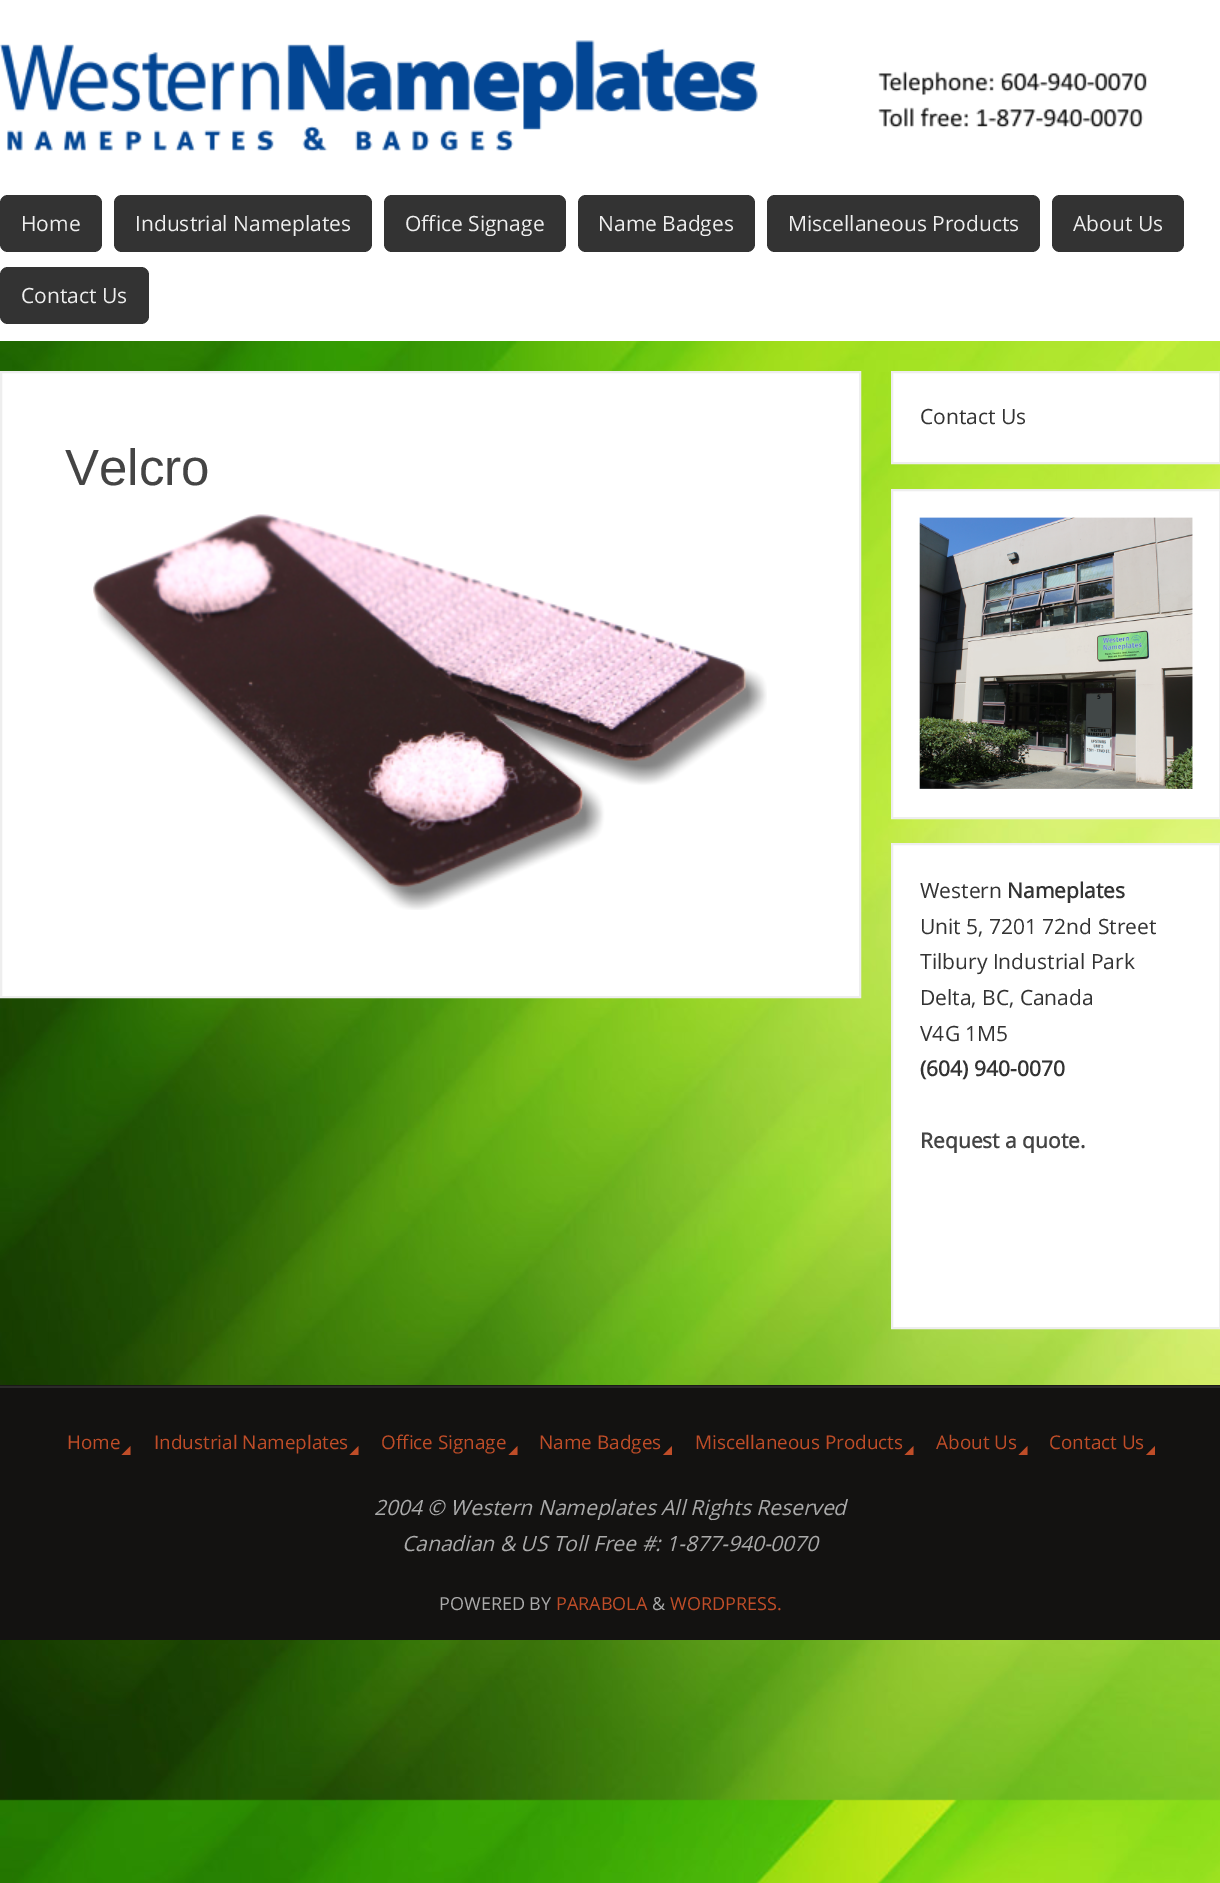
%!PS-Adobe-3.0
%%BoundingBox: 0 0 1220 1883
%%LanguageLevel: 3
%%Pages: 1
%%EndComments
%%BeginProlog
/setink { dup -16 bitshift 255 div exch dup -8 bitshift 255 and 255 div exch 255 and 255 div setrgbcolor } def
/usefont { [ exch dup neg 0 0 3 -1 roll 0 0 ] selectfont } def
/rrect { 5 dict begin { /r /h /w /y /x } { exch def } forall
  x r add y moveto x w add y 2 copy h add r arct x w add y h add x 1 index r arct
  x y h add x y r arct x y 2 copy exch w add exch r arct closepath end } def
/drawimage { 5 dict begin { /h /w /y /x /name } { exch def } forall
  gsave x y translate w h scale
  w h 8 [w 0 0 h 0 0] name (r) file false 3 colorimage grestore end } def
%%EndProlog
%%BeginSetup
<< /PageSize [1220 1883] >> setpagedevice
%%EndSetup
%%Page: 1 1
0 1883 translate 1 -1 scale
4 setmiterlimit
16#FFFFFF setink
0 0 1220 1883 rectfill
(img1.raw) 0 341 1220 1542 drawimage
(img2.raw) 0 40 1147 112 drawimage
16#333333 setink
0 195 102 57 8 rrect fill
/OpenSans-Regular 21 usefont
16#EEEEEE setink
21 231 moveto (Home) show
16#333333 setink
114 195 258 57 8 rrect fill
16#EEEEEE setink
135 231 moveto (Industrial Nameplates) show
16#333333 setink
384 195 182 57 8 rrect fill
16#EEEEEE setink
405 231 moveto (Office Signage) show
16#333333 setink
578 195 177 57 8 rrect fill
16#EEEEEE setink
598 231 moveto (Name Badges) show
16#333333 setink
767 195 273 57 8 rrect fill
16#EEEEEE setink
788 231 moveto (Miscellaneous Products) show
16#333333 setink
1052 195 132 57 8 rrect fill
16#EEEEEE setink
1073 231 moveto (About Us) show
16#333333 setink
0 267 149 57 8 rrect fill
16#EEEEEE setink
21 303 moveto (Contact Us) show
16#FFFFFF setink
1 372 moveto 860 372 lineto 860 997 lineto 1 997 lineto closepath gsave fill grestore
16#EEEEEE setink
2 setlinewidth
stroke
/LiberationSans-Regular 51 usefont
16#444444 setink
65 485 moveto (Velcro) show
(img3.raw) 93 514 674 396 drawimage
16#FFFFFF setink
892 372 moveto 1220 372 lineto 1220 463 lineto 892 463 lineto closepath gsave fill grestore
16#EEEEEE setink
stroke
/OpenSans-Regular 21 usefont
16#333333 setink
920 424 moveto (Contact Us) show
16#FFFFFF setink
892 490 moveto 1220 490 lineto 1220 818 lineto 892 818 lineto closepath gsave fill grestore
16#EEEEEE setink
stroke
(img4.raw) 919 517 274 272 drawimage
16#FFFFFF setink
892 844 moveto 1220 844 lineto 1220 1328 lineto 892 1328 lineto closepath gsave fill grestore
16#EEEEEE setink
stroke
16#333333 setink
920 898 moveto (Western) show
/OpenSans-Bold 21 usefont
1007 898 moveto (Nameplates) show
/OpenSans-Regular 21 usefont
[
    [(Unit 5, 7201 72nd Street) 920 934]
    [(Tilbury Industrial Park) 920 969]
    [(Delta, BC, Canada) 920 1005]
    [(V4G 1M5) 920 1041]
] { aload pop moveto show } forall
/OpenSans-Bold 21 usefont
920 1076 moveto (\(604\) 940-0070) show
16#444444 setink
920 1148 moveto (Request a quote.) show
[
    [0 1385 1220 1 16#1A1917]
    [0 1388 1220 252 16#131211]
    [0 1386 1220 2 16#2B2A29]
] { aload pop setink rectfill } forall
/OpenSans-Regular 18.9 usefont
16#BF4D28 setink
67 1449 moveto (Home) show
130.5 1455 moveto 121.5 1455 lineto 130.5 1446 lineto closepath fill
154 1449 moveto (Industrial Nameplates) show
358.5 1455 moveto 349.5 1455 lineto 358.5 1446 lineto closepath fill
381 1449 moveto (Office Signage) show
517.5 1455 moveto 508.5 1455 lineto 517.5 1446 lineto closepath fill
539 1449 moveto (Name Badges) show
672 1455 moveto 663 1455 lineto 672 1446 lineto closepath fill
695 1449 moveto (Miscellaneous Products) show
913.5 1455 moveto 904.5 1455 lineto 913.5 1446 lineto closepath fill
936 1449 moveto (About Us) show
1027.5 1455 moveto 1018.5 1455 lineto 1027.5 1446 lineto closepath fill
1049 1449 moveto (Contact Us) show
1155 1455 moveto 1146 1455 lineto 1155 1446 lineto closepath fill
/OpenSans-Italic 21 usefont
16#AAAAAA setink
374 1515 moveto (2004 © Western Nameplates All Rights Reserved) show
402 1551 moveto (Canadian & US Toll Free #: 1-877-940-0070) show
/OpenSans-Regular 18 usefont
439 1610 moveto (POWERED BY) show
16#BF4D28 setink
556 1610 moveto (PARABOLA) show
16#AAAAAA setink
652 1610 moveto (&) show
16#BF4D28 setink
670 1610 moveto (WORDPRESS.) show
showpage
%%EOF
